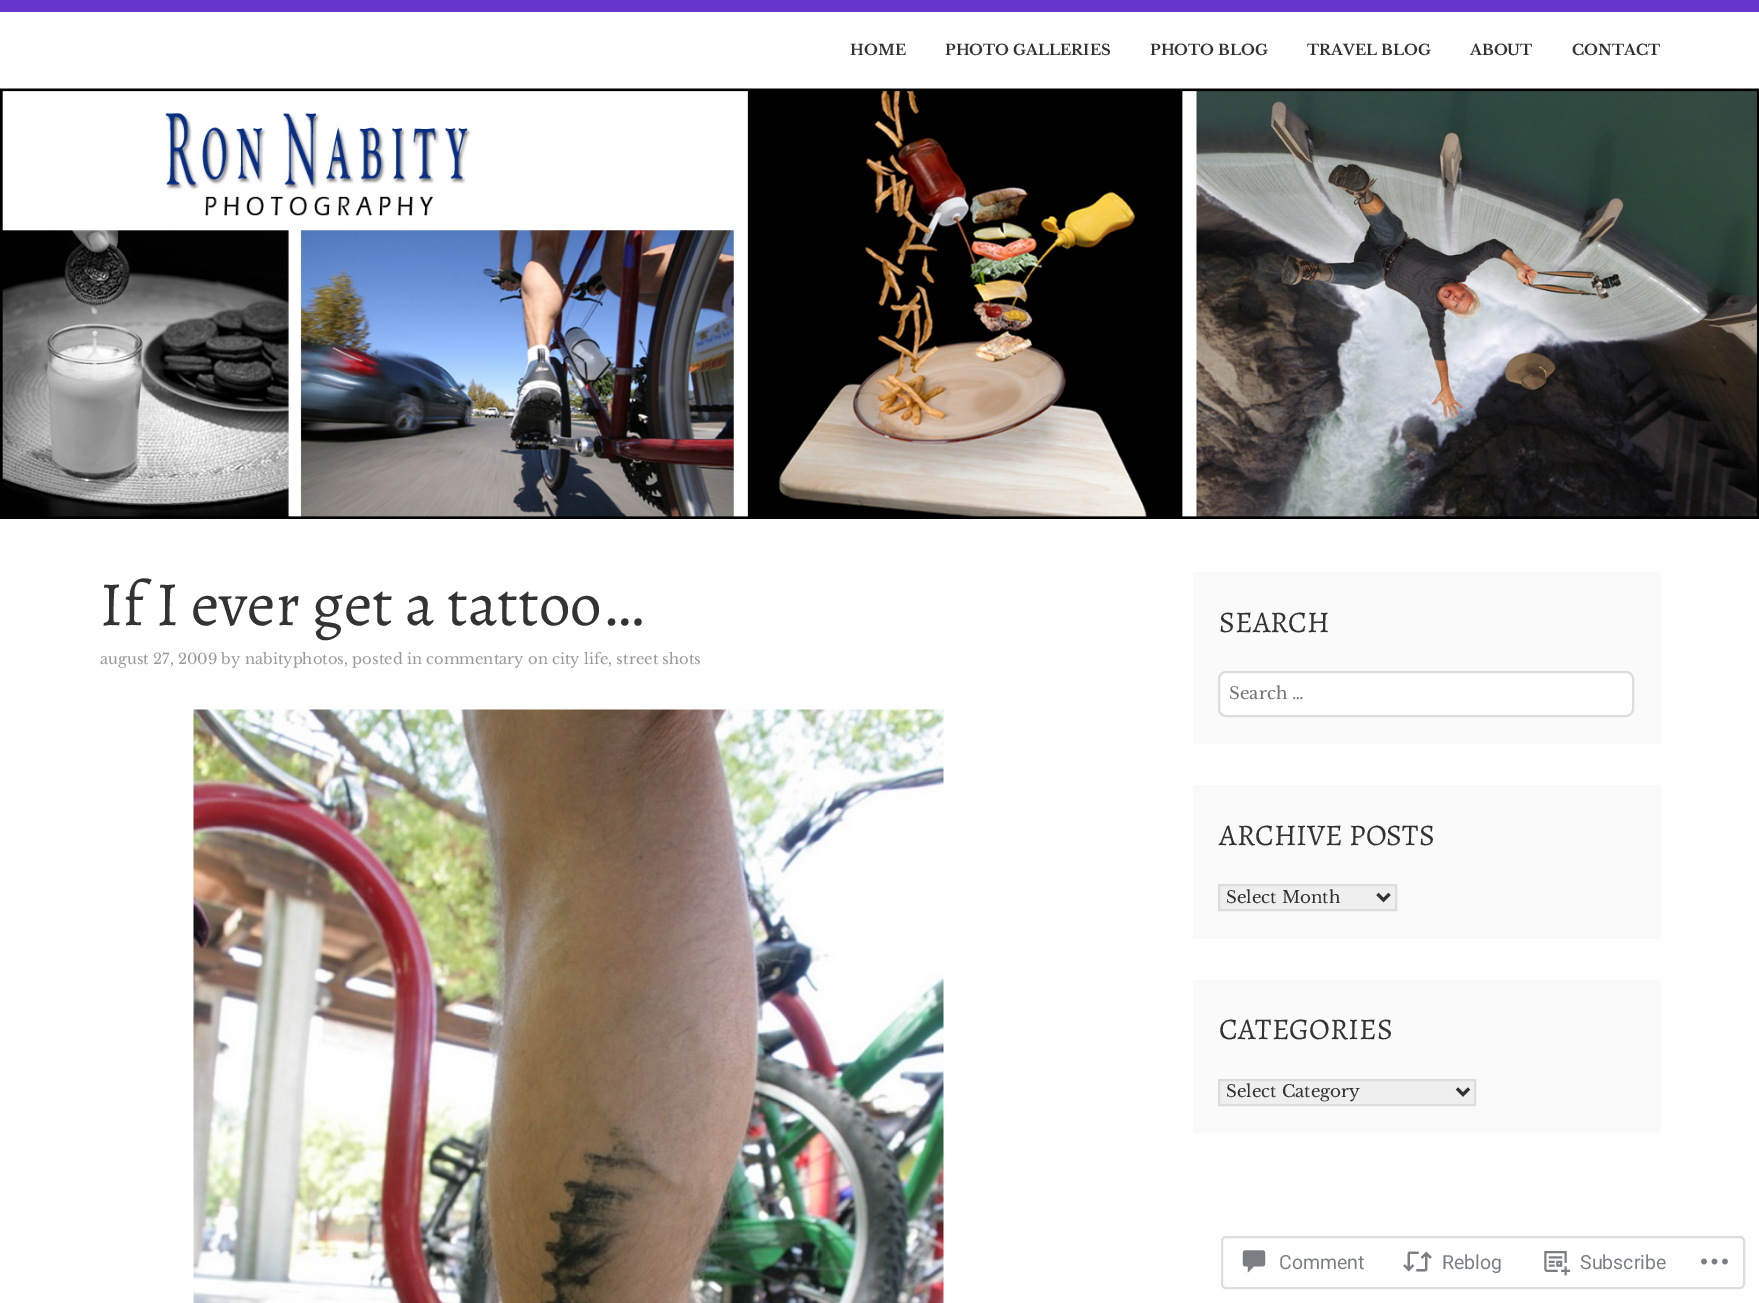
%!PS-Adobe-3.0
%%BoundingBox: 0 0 1759 1303
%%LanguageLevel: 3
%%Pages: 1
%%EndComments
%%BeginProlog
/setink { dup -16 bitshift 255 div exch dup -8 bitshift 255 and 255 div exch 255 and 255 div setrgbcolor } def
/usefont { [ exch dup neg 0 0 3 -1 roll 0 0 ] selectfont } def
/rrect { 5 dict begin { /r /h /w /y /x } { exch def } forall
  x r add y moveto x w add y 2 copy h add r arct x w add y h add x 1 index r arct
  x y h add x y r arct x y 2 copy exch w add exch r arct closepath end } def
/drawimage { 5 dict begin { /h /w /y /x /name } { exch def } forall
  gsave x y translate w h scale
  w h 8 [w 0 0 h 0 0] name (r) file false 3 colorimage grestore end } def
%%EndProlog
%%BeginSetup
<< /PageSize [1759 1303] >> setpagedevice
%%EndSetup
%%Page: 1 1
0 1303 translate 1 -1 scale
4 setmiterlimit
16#FFFFFF setink
0 0 1759 1303 rectfill
16#6636CC setink
0 0 1759 12 rectfill
/LibreBaskerville-Bold 14.7 usefont
16#333333 setink
[
    [(HOME) 850 55]
    [(PHOTO GALLERIES) 945 55]
    [(PHOTO BLOG) 1150 55]
    [(TRAVEL BLOG) 1307 55]
    [(ABOUT) 1470 55]
    [(CONTACT) 1572 55]
] { aload pop moveto show } forall
(img1.raw) 0 88 1759 431 drawimage
/Alegreya-Regular 63 usefont
100 625 moveto (If I ever get a tattoo…) show
/LibreBaskerville-Regular 14.7 usefont
16#999999 setink
100 664 moveto (august 27, 2009 by nabityphotos, posted in commentary on city life, street shots) show
(img2.raw) 193 709 751 594 drawimage
16#FAFAFA setink
1193 572 468 172 rectfill
/Alegreya-Regular 30 usefont
16#333333 setink
1219 632 moveto (SEARCH) show
16#FFFFFF setink
1219 672 414 44 7 rrect gsave fill grestore
16#DDDDDD setink
2 setlinewidth
stroke
/LibreBaskerville-Regular 16.75 usefont
16#757575 setink
1229 699 moveto (Search …) show
16#FAFAFA setink
1193 785 468 154 rectfill
/Alegreya-Regular 30 usefont
16#333333 setink
1219 845 moveto (ARCHIVE POSTS) show
16#EFEFEF setink
1219 885 moveto 1396 885 lineto 1396 910 lineto 1219 910 lineto closepath gsave fill grestore
16#DDDDDD setink
stroke
16#333333 setink
3 setlinewidth
1377.5 894 moveto 1383.5 900 lineto 1389.5 894 lineto stroke
/LibreBaskerville-Regular 16.75 usefont
1226 903 moveto (Select Month) show
16#FAFAFA setink
1193 980 468 153 rectfill
/Alegreya-Regular 30 usefont
16#333333 setink
1219 1039 moveto (CATEGORIES) show
16#EFEFEF setink
1219 1080 moveto 1475 1080 lineto 1475 1105 lineto 1219 1105 lineto closepath gsave fill grestore
16#DDDDDD setink
2 setlinewidth
stroke
16#333333 setink
3 setlinewidth
1457 1088.5 moveto 1463 1094.5 lineto 1469 1088.5 lineto stroke
/LibreBaskerville-Regular 16.75 usefont
1226 1097 moveto (Select Category) show
16#DDDDDF setink
2 setlinewidth
1222 1237 522 51 4 rrect stroke
(img3.raw) 1242 1250 24 23 drawimage
/Roboto-Regular 19.5 usefont
16#7B7F85 setink
1279 1269 moveto (Comment) show
(img4.raw) 1403 1251 29 21 drawimage
1442 1269 moveto (Reblog) show
(img5.raw) 1544 1251 27 25 drawimage
1580 1269 moveto (Subscribe) show
(img6.raw) 1701 1258 27 7 drawimage
showpage
%%EOF
